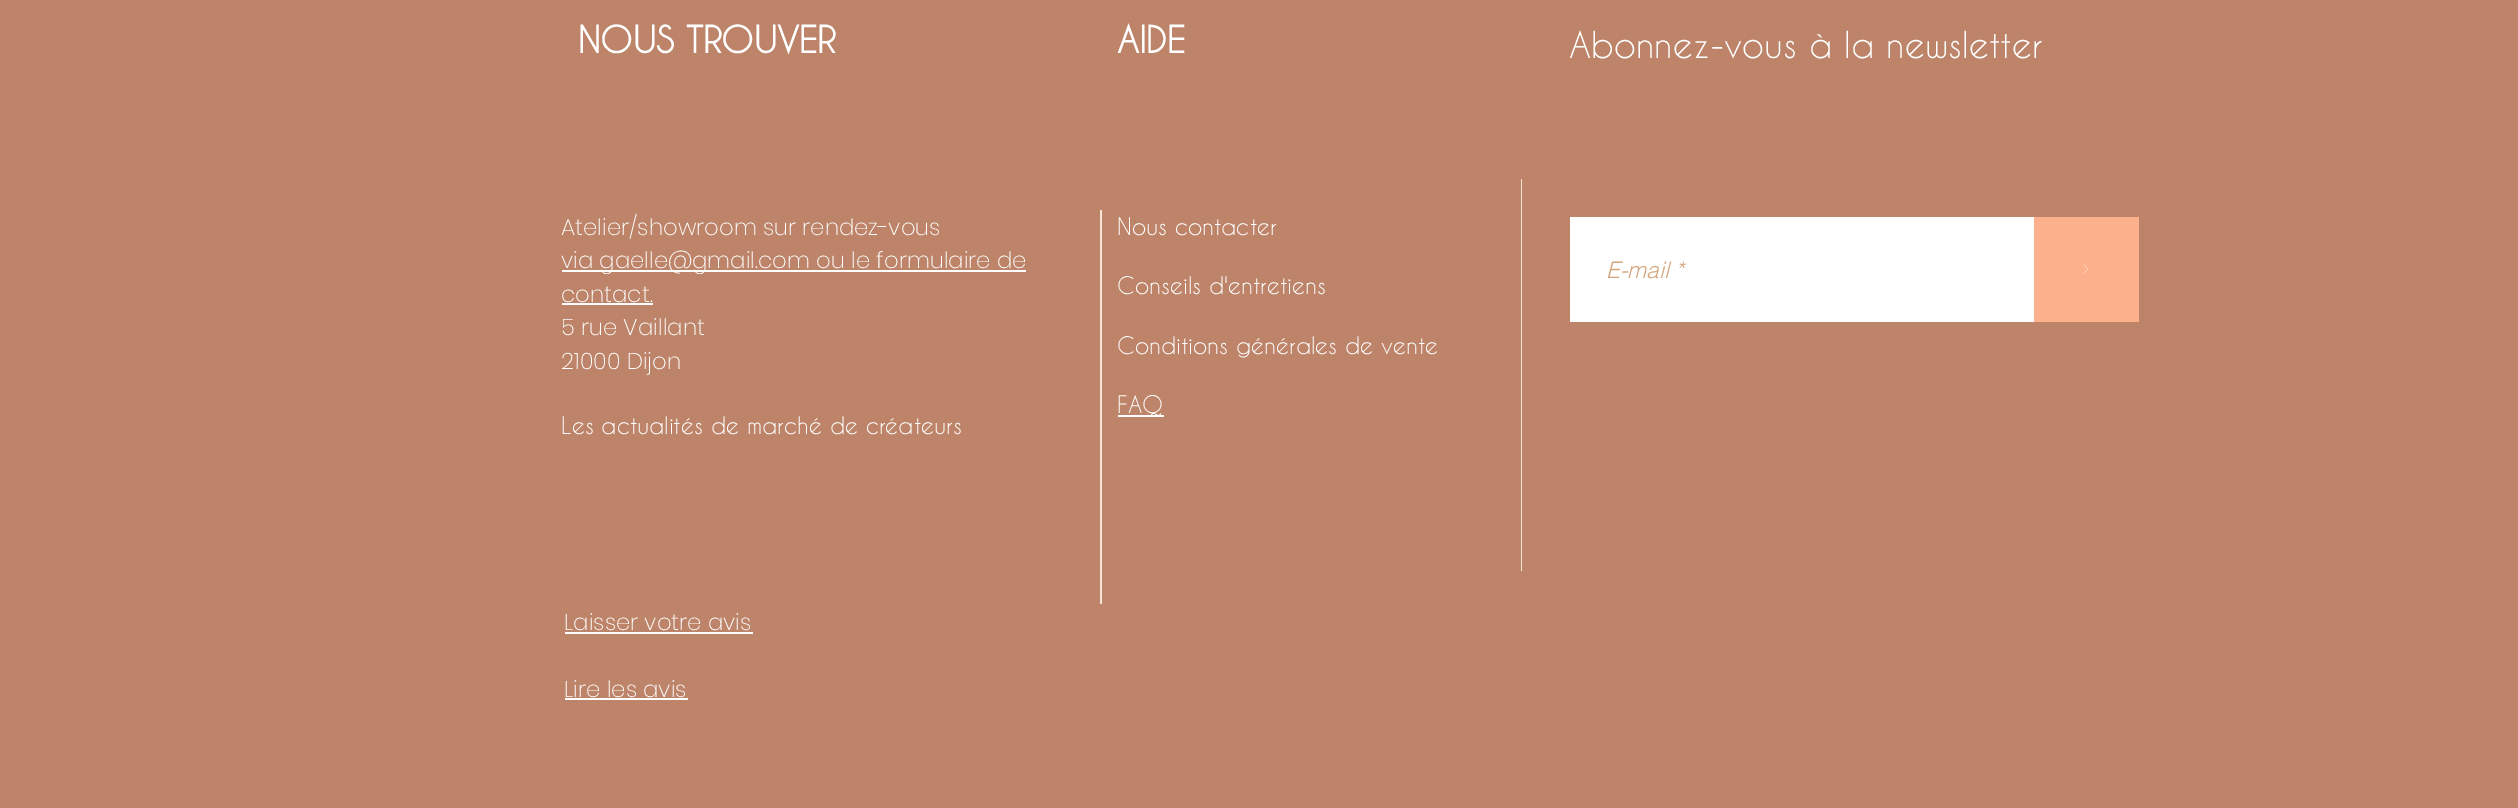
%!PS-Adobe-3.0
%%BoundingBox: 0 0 2518 808
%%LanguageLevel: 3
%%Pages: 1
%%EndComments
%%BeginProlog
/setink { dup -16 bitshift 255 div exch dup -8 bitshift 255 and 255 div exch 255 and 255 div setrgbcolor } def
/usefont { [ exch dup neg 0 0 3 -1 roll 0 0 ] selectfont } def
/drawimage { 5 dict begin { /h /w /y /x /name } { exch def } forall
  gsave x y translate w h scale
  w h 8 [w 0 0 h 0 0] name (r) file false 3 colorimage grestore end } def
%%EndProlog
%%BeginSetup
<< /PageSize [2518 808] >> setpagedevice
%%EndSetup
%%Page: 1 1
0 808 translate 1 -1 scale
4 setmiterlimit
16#BD8469 setink
0 0 2518 808 rectfill
/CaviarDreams-Bold 35 usefont
16#FFFFFF setink
578 53 moveto (NOUS TROUVER) show
1117 53 moveto (AIDE) show
/CaviarDreams-Regular 35 usefont
1569 58 moveto (Abonnez-vous à la newsletter) show
/Poppins-ExtraLight 22.75 usefont
561 235 moveto (Atelier/showroom sur rendez-vous) show
562 270 464 2 rectfill
561 268 moveto (via gaelle@gmail.com ou le formulaire de) show
561 302 moveto (contact.) show
562 303 91 2 rectfill
561 335 moveto (5 rue Vaillant) show
561 369 moveto (21000 Dijon) show
/CaviarDreams-Regular 22.75 usefont
561 434 moveto (Les actualités de marché de créateurs) show
16#F5E5D6 setink
1100 210 2 394 rectfill
16#FFFFFF setink
[
    [(Nous contacter) 1117 235]
    [(Conseils d'entretiens) 1117 294]
    [(Conditions générales de vente) 1117 354]
] { aload pop moveto show } forall
1118 415 46 2 rectfill
1117 413 moveto (FAQ) show
16#F5E5D6 setink
1521 179 1 392 rectfill
16#FFFFFF setink
1570 217 464 105 rectfill
/helvetica-LightItalic 22.75 usefont
16#D4A67D setink
1606 278 moveto (E-mail *) show
16#FCB08C setink
2034 217 105 105 rectfill
(img1.raw) 2083 264 5 10 drawimage
/Poppins-ExtraLight 22.75 usefont
16#FFFFFF setink
564 630 moveto (Laisser votre avis) show
565 632 188 2 rectfill
564 697 moveto (Lire les avis) show
565 698 123 2 rectfill
showpage
%%EOF
